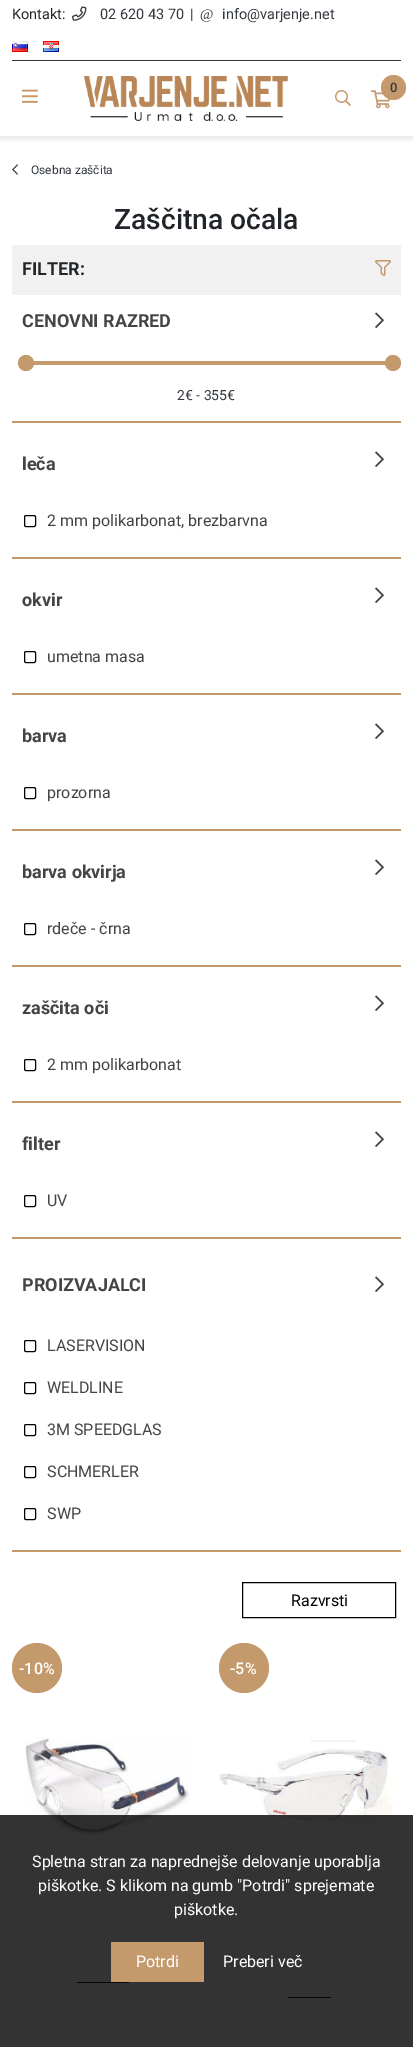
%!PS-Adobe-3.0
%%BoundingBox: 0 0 413 2047
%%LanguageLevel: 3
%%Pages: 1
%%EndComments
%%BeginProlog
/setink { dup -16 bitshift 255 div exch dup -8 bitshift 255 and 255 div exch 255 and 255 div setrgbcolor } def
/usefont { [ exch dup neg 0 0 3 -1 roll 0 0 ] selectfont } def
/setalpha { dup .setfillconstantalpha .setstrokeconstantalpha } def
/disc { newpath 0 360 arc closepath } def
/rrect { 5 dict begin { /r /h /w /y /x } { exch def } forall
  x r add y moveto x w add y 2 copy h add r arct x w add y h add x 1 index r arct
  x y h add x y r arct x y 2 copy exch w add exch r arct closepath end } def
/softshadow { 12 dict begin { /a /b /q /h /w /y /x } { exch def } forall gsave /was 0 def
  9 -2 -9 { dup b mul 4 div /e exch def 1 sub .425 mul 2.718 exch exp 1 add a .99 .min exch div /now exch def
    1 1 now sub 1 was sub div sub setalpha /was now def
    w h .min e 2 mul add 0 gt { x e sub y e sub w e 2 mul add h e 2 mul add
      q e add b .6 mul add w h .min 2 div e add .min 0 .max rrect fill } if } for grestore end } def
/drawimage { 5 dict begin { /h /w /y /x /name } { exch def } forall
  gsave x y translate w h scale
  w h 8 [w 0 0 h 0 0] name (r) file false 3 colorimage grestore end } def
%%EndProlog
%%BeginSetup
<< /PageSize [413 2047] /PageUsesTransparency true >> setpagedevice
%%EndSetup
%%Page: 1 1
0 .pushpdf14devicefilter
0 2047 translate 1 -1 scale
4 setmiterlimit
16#FFFFFF setink
0 0 413 2047 rectfill
gsave
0 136 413 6 rectclip
16#000000 setink
0 3 413 136 0 3 0.1 softshadow
grestore
16#33383F setink
12 60 389 1 rectfill
/Roboto-Regular 14.5 usefont
16#212529 setink
12 19 moveto (Kontakt:) show
(img1.raw) 72 6 15 15 drawimage
16#33383E setink
100 19 moveto (02 620 43 70) show
16#212529 setink
190 19 moveto (|) show
/LiberationSerif-Regular 14.5 usefont
16#33383E setink
200 19 moveto (@) show
/Roboto-Regular 14.5 usefont
222 19 moveto (info@varjenje.net) show
(img2.raw) 12 41 16 11 drawimage
(img3.raw) 43 41 16 11 drawimage
(img4.raw) 84 76 204 45 drawimage
(img5.raw) 371 90 19 19 drawimage
16#C49A6C setink
393.5 87.5 12.5 disc fill
/Roboto-Medium 13 usefont
16#33383E setink
390 92 moveto (0) show
(img6.raw) 335 90 16 16 drawimage
(img7.raw) 22 89 16 14 drawimage
(img8.raw) 12 164 6 11 drawimage
/Roboto-Regular 12 usefont
31 174 moveto (Osebna zaščita) show
/Roboto-Medium 28.25 usefont
16#212529 setink
114 229 moveto (Zaščitna očala) show
16#F1F1F1 setink
12 245 389 50 rectfill
/Roboto-Bold 18 usefont
16#212529 setink
22 275 moveto (FILTER:) show
(img9.raw) 375 260 16 16 drawimage
16#C49A6C setink
12 421 389 2 rectfill
16#444444 setink
22 327 moveto (CENOVNI RAZRED) show
(img10.raw) 375 312 9 16 drawimage
16#C49A6C setink
33 361 357 4 rectfill
26 363 8 disc fill
393 363 8 disc fill
/Roboto-Regular 14 usefont
16#33383E setink
177 400 moveto (2€ - 355€) show
16#C49A6C setink
12 557 389 2 rectfill
/Roboto-Bold 18 usefont
16#444444 setink
22 470 moveto (leča) show
(img10.raw) 375 451 9 16 drawimage
16#000000 setink
24.5 515.5 11 11 1.5 rrect stroke
/Roboto-Regular 16 usefont
16#444444 setink
47 526 moveto (2 mm polikarbonat, brezbarvna) show
16#C49A6C setink
12 693 389 2 rectfill
/Roboto-Bold 18 usefont
16#444444 setink
22 606 moveto (okvir) show
(img10.raw) 375 587 9 16 drawimage
16#000000 setink
24.5 651.5 11 11 1.5 rrect stroke
/Roboto-Regular 16 usefont
16#444444 setink
47 662 moveto (umetna masa) show
16#C49A6C setink
12 829 389 2 rectfill
/Roboto-Bold 18 usefont
16#444444 setink
22 742 moveto (barva) show
(img10.raw) 375 723 9 16 drawimage
16#000000 setink
24.5 787.5 11 11 1.5 rrect stroke
/Roboto-Regular 16 usefont
16#444444 setink
47 798 moveto (prozorna) show
16#C49A6C setink
12 965 389 2 rectfill
/Roboto-Bold 18 usefont
16#444444 setink
22 878 moveto (barva okvirja) show
(img10.raw) 375 859 9 16 drawimage
16#000000 setink
24.5 923.5 11 11 1.5 rrect stroke
/Roboto-Regular 16 usefont
16#444444 setink
47 934 moveto (rdeče - črna) show
16#C49A6C setink
12 1101 389 2 rectfill
/Roboto-Bold 18 usefont
16#444444 setink
22 1014 moveto (zaščita oči) show
(img10.raw) 375 995 9 16 drawimage
16#000000 setink
24.5 1059.5 11 11 1.5 rrect stroke
/Roboto-Regular 16 usefont
16#444444 setink
47 1070 moveto (2 mm polikarbonat) show
16#C49A6C setink
12 1237 389 2 rectfill
/Roboto-Bold 18 usefont
16#444444 setink
22 1150 moveto (filter) show
(img10.raw) 375 1131 9 16 drawimage
16#000000 setink
24.5 1195.5 11 11 1.5 rrect stroke
/Roboto-Regular 16 usefont
16#444444 setink
47 1206 moveto (UV) show
16#C49A6C setink
12 1550 389 2 rectfill
/Roboto-Bold 18 usefont
16#444444 setink
22 1291 moveto (PROIZVAJALCI) show
(img10.raw) 375 1276 9 16 drawimage
16#000000 setink
24.5 1340.5 11 11 1.5 rrect stroke
/Roboto-Regular 16 usefont
16#444444 setink
47 1351 moveto (LASERVISION) show
16#000000 setink
24.5 1382.5 11 11 1.5 rrect stroke
16#444444 setink
47 1393 moveto (WELDLINE) show
16#000000 setink
24.5 1424.5 11 11 1.5 rrect stroke
16#444444 setink
47 1435 moveto (3M SPEEDGLAS) show
16#000000 setink
24.5 1466.5 11 11 1.5 rrect stroke
16#444444 setink
47 1477 moveto (SCHMERLER) show
16#000000 setink
24.5 1508.5 11 11 1.5 rrect stroke
16#444444 setink
47 1519 moveto (SWP) show
16#000000 setink
242.5 1582.5 153 35 rectstroke
291 1606 moveto (Razvrsti) show
16#C49A6C setink
37 1668 25 disc fill
/Roboto-Medium 16 usefont
16#FFFFFF setink
19 1674 moveto (-10%) show
(img11.raw) 25 1737 165 99 drawimage
16#212529 setink
77 1982 52 1 rectfill
16#C49A6C setink
244 1668 25 disc fill
16#FFFFFF setink
230 1674 moveto (-5%) show
(img12.raw) 219 1740 175 86 drawimage
16#212529 setink
288 1997 43 1 rectfill
0.8 setalpha
16#000000 setink
0 1815 413 232 rectfill
/Roboto-Regular 16 usefont
1 setalpha
16#FFFFFF setink
[
    [(Spletna stran za naprednejše delovanje uporablja) 32 1867]
    [(piškotke. S klikom na gumb "Potrdi" sprejemate) 38 1891]
    [(piškotke.) 174 1915]
] { aload pop moveto show } forall
16#C49A6C setink
111 1942 93 40 rectfill
16#FFFFFF setink
136 1967 moveto (Potrdi) show
223 1967 moveto (Preberi več) show
.poppdf14devicefilter showpage
%%EOF
